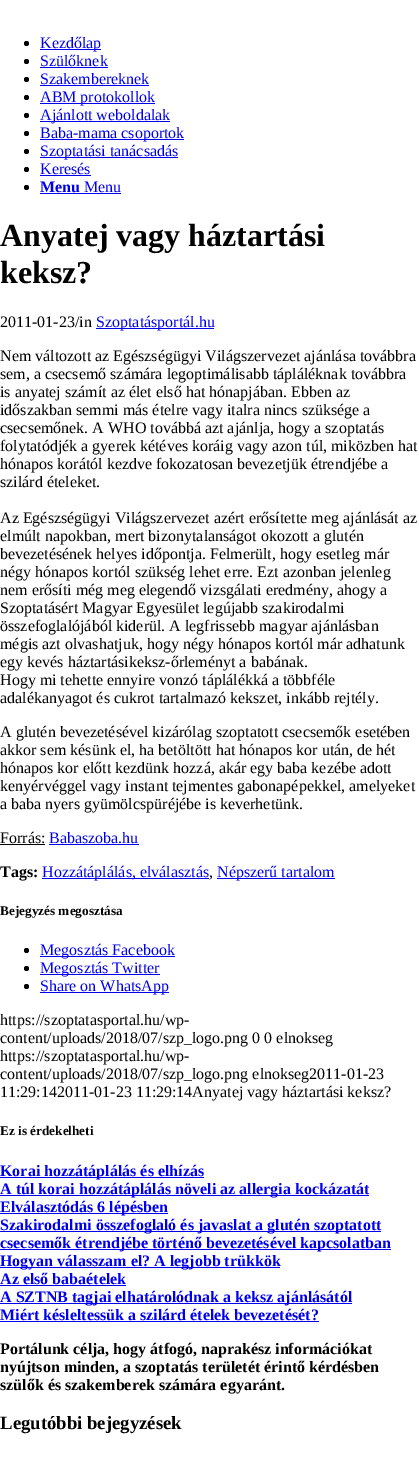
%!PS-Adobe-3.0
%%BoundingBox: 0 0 419 1458
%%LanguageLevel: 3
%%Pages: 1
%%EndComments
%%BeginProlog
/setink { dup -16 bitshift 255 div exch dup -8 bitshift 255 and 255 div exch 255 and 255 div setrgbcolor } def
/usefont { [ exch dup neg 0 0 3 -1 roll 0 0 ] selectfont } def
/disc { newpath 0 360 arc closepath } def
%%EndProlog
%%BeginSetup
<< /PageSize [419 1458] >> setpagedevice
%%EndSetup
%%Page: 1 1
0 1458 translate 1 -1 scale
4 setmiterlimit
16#FFFFFF setink
0 0 419 1458 rectfill
16#000000 setink
26.5 43.5 2.5 disc fill
16#0000EE setink
40 49 61 1 rectfill
/LiberationSerif-Regular 16 usefont
40 48 moveto (Kezdőlap) show
16#000000 setink
26.5 61.5 2.5 disc fill
16#0000EE setink
40 66 moveto (Szülőknek) show
40 67 68 1 rectfill
16#000000 setink
26.5 79.5 2.5 disc fill
16#0000EE setink
40 84 moveto (Szakembereknek) show
40 85 109 1 rectfill
16#000000 setink
26.5 97.5 2.5 disc fill
16#0000EE setink
40 103 115 1 rectfill
40 102 moveto (ABM protokollok) show
16#000000 setink
26.5 115.5 2.5 disc fill
16#0000EE setink
40 121 130 1 rectfill
40 120 moveto (Ajánlott weboldalak) show
16#000000 setink
26.5 133.5 2.5 disc fill
16#0000EE setink
40 139 144 1 rectfill
40 138 moveto (Baba-mama csoportok) show
16#000000 setink
26.5 151.5 2.5 disc fill
16#0000EE setink
40 157 138 1 rectfill
40 156 moveto (Szoptatási tanácsadás) show
16#000000 setink
26.5 169.5 2.5 disc fill
16#0000EE setink
40 174 moveto (Keresés) show
40 175 51 1 rectfill
16#000000 setink
26.5 187.5 2.5 disc fill
/LiberationSerif-Bold 16 usefont
16#0000EE setink
40 192 moveto (Menu) show
40 193 81 1 rectfill
/LiberationSerif-Regular 16 usefont
84 192 moveto (Menu) show
/LiberationSerif-Bold 32 usefont
16#000000 setink
0 246 moveto (Anyatej vagy háztartási) show
0 283 moveto (keksz?) show
/LiberationSerif-Regular 16 usefont
0 327 moveto (2011-01-23/in) show
16#0000EE setink
96 328 118 1 rectfill
96 327 moveto (Szoptatásportál.hu) show
16#000000 setink
[
    [(Nem változott az Egészségügyi Világszervezet ajánlása továbbra) 0 361]
    [(sem, a csecsemő számára legoptimálisabb tápláléknak továbbra) 0 379]
    [(is anyatej számít az élet első hat hónapjában. Ebben az) 0 397]
    [(időszakban semmi más ételre vagy italra nincs szüksége a) 0 415]
    [(csecsemőnek. A WHO továbbá azt ajánlja, hogy a szoptatás) 0 433]
    [(folytatódjék a gyerek kétéves koráig vagy azon túl, miközben hat) 0 451]
    [(hónapos korától kezdve fokozatosan bevezetjük étrendjébe a) 0 469]
    [(szilárd ételeket.) 0 487]
    [(Az Egészségügyi Világszervezet azért erősítette meg ajánlását az) 0 523]
    [(elmúlt napokban, mert bizonytalanságot okozott a glutén) 0 541]
    [(bevezetésének helyes időpontja. Felmerült, hogy esetleg már) 0 559]
    [(négy hónapos kortól szükség lehet erre. Ezt azonban jelenleg) 0 577]
    [(nem erősíti még meg elegendő vizsgálati eredmény, ahogy a) 0 595]
    [(Szoptatásért Magyar Egyesület legújabb szakirodalmi) 0 613]
    [(összefoglalójából kiderül. A legfrissebb magyar ajánlásban) 0 631]
    [(mégis azt olvashatjuk, hogy négy hónapos kortól már adhatunk) 0 649]
    [(egy kevés háztartásikeksz-őrleményt a babának.) 0 667]
    [(Hogy mi tehette ennyire vonzó táplálékká a többféle) 0 685]
    [(adalékanyagot és cukrot tartalmazó kekszet, inkább rejtély.) 0 703]
    [(A glutén bevezetésével kizárólag szoptatott csecsemők esetében) 0 737]
    [(akkor sem késünk el, ha betöltött hat hónapos kor után, de hét) 0 755]
    [(hónapos kor előtt kezdünk hozzá, akár egy baba kezébe adott) 0 773]
    [(kenyérvéggel vagy instant tejmentes gabonapépekkel, amelyeket) 0 791]
    [(a baba nyers gyümölcspüréjébe is keverhetünk.) 0 809]
    [(Forrás:) 0 843]
] { aload pop moveto show } forall
0 844 45 1 rectfill
16#0000EE setink
49 843 moveto (Babaszoba.hu) show
49 844 90 1 rectfill
/LiberationSerif-Bold 16 usefont
16#000000 setink
0 877 moveto (Tags:) show
16#0000EE setink
42 878 167 1 rectfill
/LiberationSerif-Regular 16 usefont
42 877 moveto (Hozzátáplálás, elválasztás) show
16#000000 setink
209 877 moveto (,) show
16#0000EE setink
217 878 118 1 rectfill
217 877 moveto (Népszerű tartalom) show
/LiberationSerif-Bold 13.25 usefont
16#000000 setink
0 915 moveto (Bejegyzés megosztása) show
26.5 950.5 2.5 disc fill
16#0000EE setink
40 956 135 1 rectfill
/LiberationSerif-Regular 16 usefont
40 955 moveto (Megosztás Facebook) show
16#000000 setink
26.5 968.5 2.5 disc fill
16#0000EE setink
40 974 120 1 rectfill
40 973 moveto (Megosztás Twitter) show
16#000000 setink
26.5 986.5 2.5 disc fill
16#0000EE setink
40 992 129 1 rectfill
40 991 moveto (Share on WhatsApp) show
16#000000 setink
[
    [(https://szoptatasportal.hu/wp-) 0 1025]
    [(content/uploads/2018/07/szp_logo.png 0 0 elnokseg) 0 1043]
    [(https://szoptatasportal.hu/wp-) 0 1061]
    [(content/uploads/2018/07/szp_logo.png elnokseg2011-01-23) 0 1079]
    [(11:29:142011-01-23 11:29:14Anyatej vagy háztartási keksz?) 0 1097]
] { aload pop moveto show } forall
/LiberationSerif-Bold 13.25 usefont
0 1135 moveto (Ez is érdekelheti) show
16#0000EE setink
0 1177 204 1 rectfill
/LiberationSerif-Bold 16 usefont
0 1176 moveto (Korai hozzátáplálás és elhízás) show
0 1195 369 1 rectfill
0 1194 moveto (A túl korai hozzátáplálás növeli az allergia kockázatát) show
0 1213 168 1 rectfill
0 1212 moveto (Elválasztódás 6 lépésben) show
0 1231 381 1 rectfill
0 1230 moveto (Szakirodalmi összefoglaló és javaslat a glutén szoptatott) show
0 1249 391 1 rectfill
0 1248 moveto (csecsemők étrendjébe történő bevezetésével kapcsolatban) show
0 1267 280 1 rectfill
0 1266 moveto (Hogyan válasszam el? A legjobb trükkök) show
0 1284 moveto (Az első babaételek) show
0 1285 126 1 rectfill
0 1303 352 1 rectfill
0 1302 moveto (A SZTNB tagjai elhatárolódnak a keksz ajánlásától) show
0 1320 moveto (Miért késleltessük a szilárd ételek bevezetését?) show
0 1321 319 1 rectfill
16#000000 setink
[
    [(Portálunk célja, hogy átfogó, naprakész információkat) 0 1354]
    [(nyújtson minden, a szoptatás területét érintő kérdésben) 0 1372]
    [(szülők és szakemberek számára egyaránt.) 0 1390]
] { aload pop moveto show } forall
/LiberationSerif-Bold 18.75 usefont
0 1429 moveto (Legutóbbi bejegyzések) show
showpage
%%EOF
